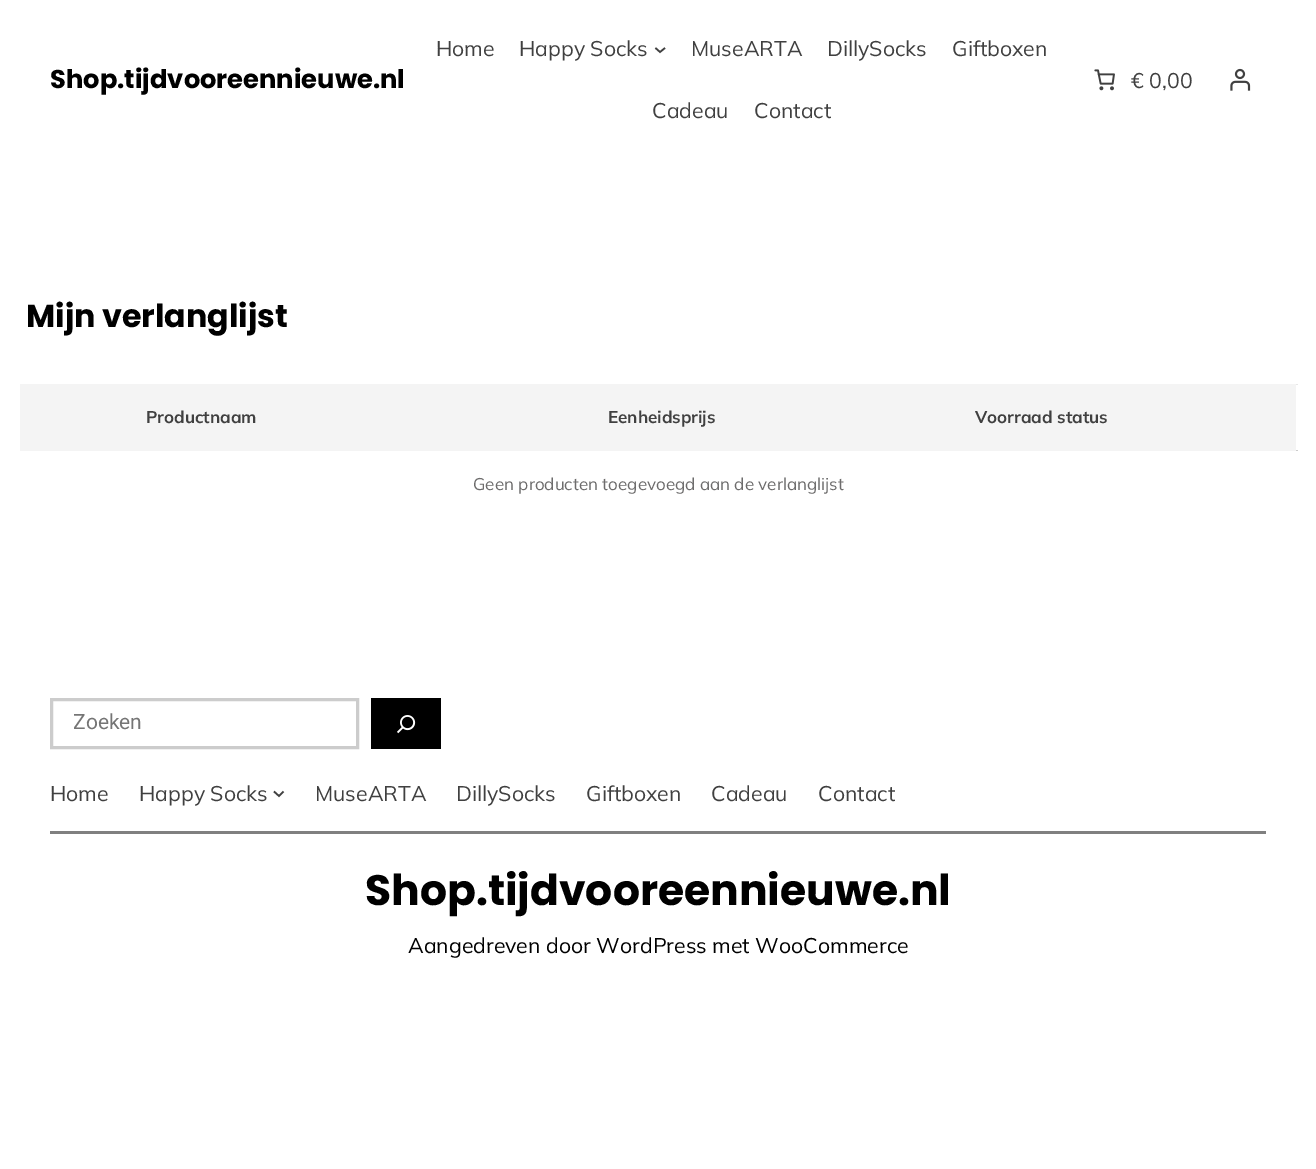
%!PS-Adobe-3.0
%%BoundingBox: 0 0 1316 1169
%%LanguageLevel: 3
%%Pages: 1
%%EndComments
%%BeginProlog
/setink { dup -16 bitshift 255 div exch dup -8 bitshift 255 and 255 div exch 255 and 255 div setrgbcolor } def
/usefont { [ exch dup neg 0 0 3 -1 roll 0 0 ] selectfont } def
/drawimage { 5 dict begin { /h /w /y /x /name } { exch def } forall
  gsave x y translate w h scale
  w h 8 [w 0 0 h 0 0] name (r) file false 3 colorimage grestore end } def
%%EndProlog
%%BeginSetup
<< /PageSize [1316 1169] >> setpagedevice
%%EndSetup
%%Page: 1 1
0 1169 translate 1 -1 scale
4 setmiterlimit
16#FFFFFF setink
0 0 1316 1169 rectfill
/Poppins-Bold 25.75 usefont
16#000000 setink
50 88 moveto (Shop.tijdvooreennieuwe.nl) show
/Mulish-Regular 21.25 usefont
16#404040 setink
436 56 moveto (Home) show
519 56 moveto (Happy Socks) show
1.6 setlinewidth
655.5 48 moveto 660 52 lineto 665 48 lineto stroke
[
    [(MuseARTA) 691 56]
    [(DillySocks) 827 56]
    [(Giftboxen) 952 56]
    [(Cadeau) 652 118]
    [(Contact) 754 118]
] { aload pop moveto show } forall
(img1.raw) 1094 69 21 22 drawimage
1131 88 moveto (€ 0,00) show
(img2.raw) 1230 68 21 23 drawimage
/Poppins-Bold 31.75 usefont
16#000000 setink
26 327 moveto (Mijn verlanglijst) show
16#F4F4F4 setink
20 384 1276 67 rectfill
16#E7E7E7 setink
1296 384 2 1 rectfill
/Mulish-Bold 17 usefont
16#404040 setink
[
    [(Productnaam) 146 423]
    [(Eenheidsprijs) 608 423]
    [(Voorraad status) 975 423]
] { aload pop moveto show } forall
16#CCCCCC setink
1296 450 2 1 rectfill
/Mulish-Regular 17 usefont
16#6D6C6C setink
473 490 moveto (Geen producten toegevoegd aan de verlanglijst) show
16#CCCCCC setink
3 setlinewidth
51.5 699.5 306 48 rectstroke
/Roboto-Regular 21 usefont
16#757575 setink
73 729 moveto (Zoeken) show
16#000000 setink
371 698 70 51 rectfill
(img3.raw) 397 715 19 19 drawimage
/Mulish-Regular 21.25 usefont
16#404040 setink
50 801 moveto (Home) show
139 801 moveto (Happy Socks) show
1.6 setlinewidth
274 791.5 moveto 279 796 lineto 283.5 791.5 lineto stroke
[
    [(MuseARTA) 315 801]
    [(DillySocks) 456 801]
    [(Giftboxen) 586 801]
    [(Cadeau) 711 801]
    [(Contact) 818 801]
] { aload pop moveto show } forall
16#808080 setink
50 831 1216 3 rectfill
/Poppins-Bold 42.5 usefont
16#000000 setink
365 905 moveto (Shop.tijdvooreennieuwe.nl) show
/Mulish-Regular 21.25 usefont
408 953 moveto (Aangedreven door WordPress met WooCommerce) show
showpage
%%EOF
